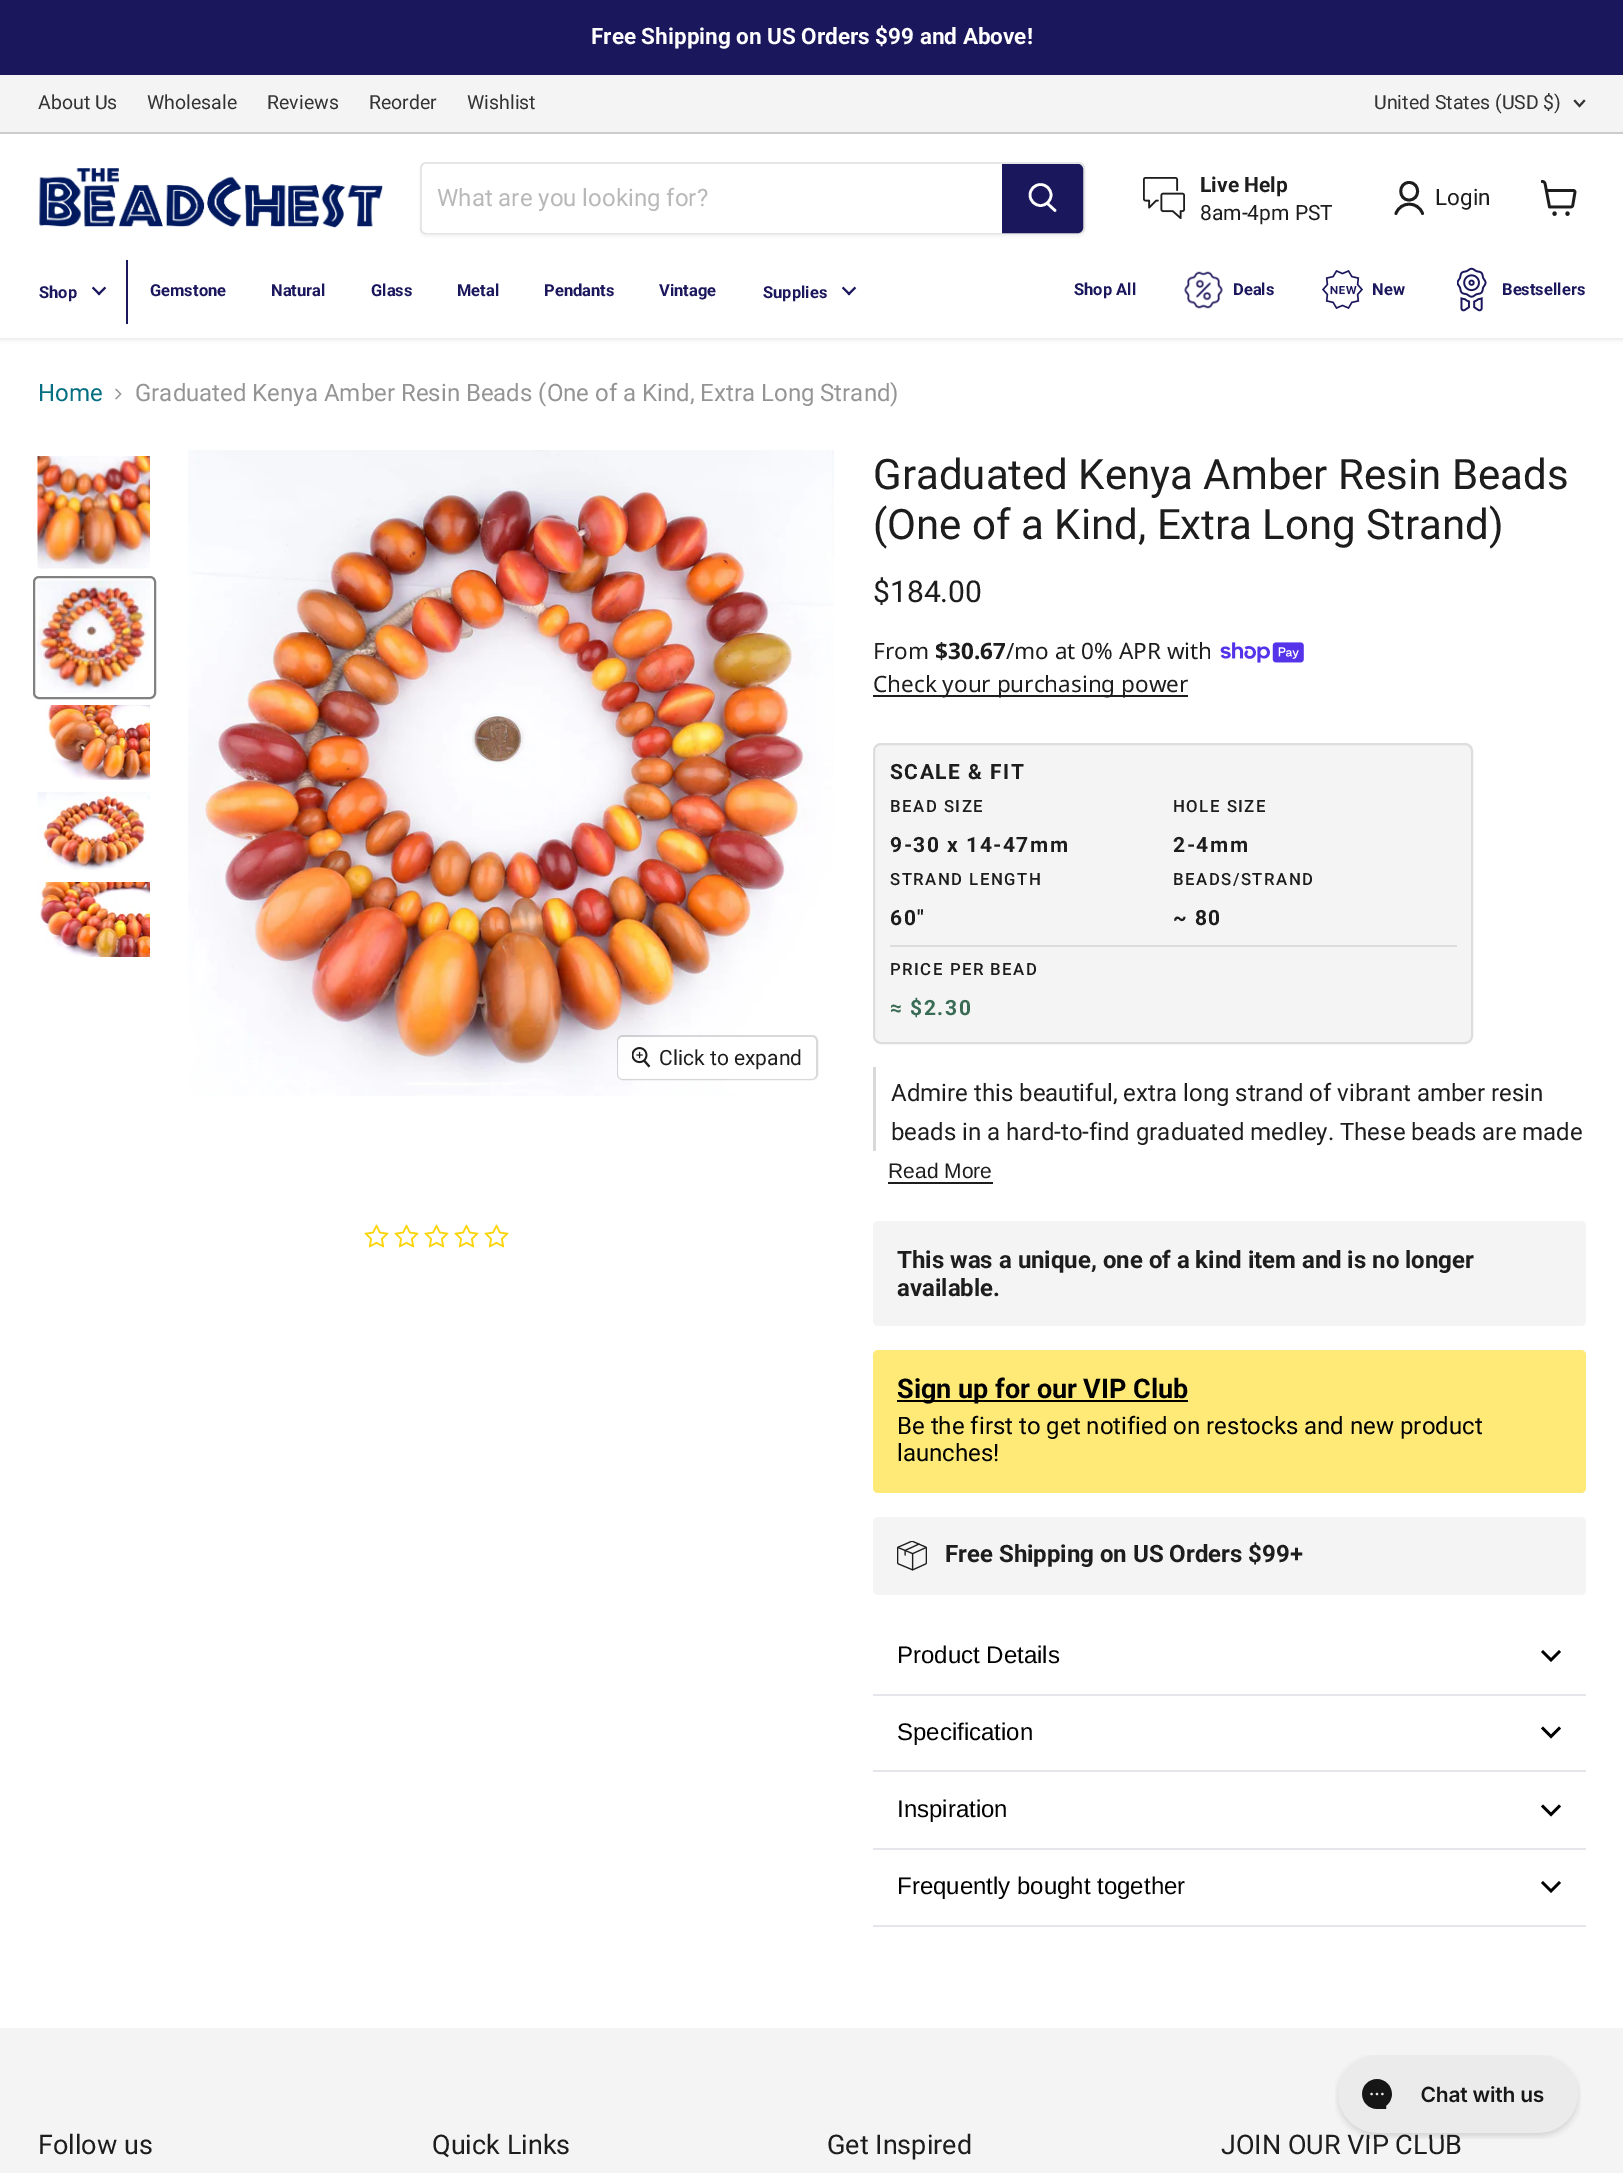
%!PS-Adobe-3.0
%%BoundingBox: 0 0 1623 2173
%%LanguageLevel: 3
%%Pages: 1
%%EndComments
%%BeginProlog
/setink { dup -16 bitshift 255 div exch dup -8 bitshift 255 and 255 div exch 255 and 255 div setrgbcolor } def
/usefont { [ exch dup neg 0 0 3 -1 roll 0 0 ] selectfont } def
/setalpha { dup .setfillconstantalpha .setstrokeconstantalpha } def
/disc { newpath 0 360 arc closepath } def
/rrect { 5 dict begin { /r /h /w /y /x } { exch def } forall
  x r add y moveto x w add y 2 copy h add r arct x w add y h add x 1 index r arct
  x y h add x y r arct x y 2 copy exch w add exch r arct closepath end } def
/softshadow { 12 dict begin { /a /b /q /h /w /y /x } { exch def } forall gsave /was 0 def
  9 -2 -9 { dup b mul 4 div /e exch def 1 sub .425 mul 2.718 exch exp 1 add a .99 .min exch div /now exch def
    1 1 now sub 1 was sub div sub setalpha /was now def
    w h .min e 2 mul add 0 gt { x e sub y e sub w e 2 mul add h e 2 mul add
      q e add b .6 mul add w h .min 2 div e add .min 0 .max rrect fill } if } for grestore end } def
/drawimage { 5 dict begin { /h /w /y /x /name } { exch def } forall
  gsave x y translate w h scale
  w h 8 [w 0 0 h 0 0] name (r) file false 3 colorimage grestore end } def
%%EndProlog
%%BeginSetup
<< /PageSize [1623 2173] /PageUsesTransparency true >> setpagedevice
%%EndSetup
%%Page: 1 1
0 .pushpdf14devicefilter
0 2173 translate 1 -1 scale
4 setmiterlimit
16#FFFFFF setink
0 0 1623 2173 rectfill
16#1B175D setink
0 0 1623 75 rectfill
/Roboto-Bold 22.5 usefont
16#FFFFFF setink
591 44 moveto (Free Shipping on US Orders $99 and Above!) show
16#808080 setink
0 135 1623 204 0 3 0.25 softshadow
16#F4F4F4 setink
0 75 1623 57 rectfill
16#CCCCCC setink
0 132 1623 2 rectfill
/Roboto-Regular 19.5 usefont
16#333333 setink
[
    [(About Us) 38 109]
    [(Wholesale) 147 109]
    [(Reviews) 267 109]
    [(Reorder) 369 109]
    [(Wishlist) 467 109]
    [(United States \(USD $\)) 1374 109]
] { aload pop moveto show } forall
1.9 setlinewidth
2 setlinecap
1579.5 106 moveto 1584 101 lineto 1579.5 106 moveto 1575 101 lineto stroke
16#FFFFFF setink
0 134 1623 204 rectfill
(img1.raw) 39 168 344 60 drawimage
gsave
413 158 moveto 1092 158 lineto 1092 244 lineto 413 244 lineto closepath 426 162 moveto 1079 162 lineto 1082.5 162 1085 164.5 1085 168 curveto 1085 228 lineto 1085 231.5 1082.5 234 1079 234 curveto 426 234 lineto 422.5 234 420 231.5 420 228 curveto 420 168 lineto 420 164.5 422.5 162 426 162 curveto closepath eoclip newpath
16#808080 setink
420 165 665 72 6 2 0.11 softshadow
grestore
0.2 setalpha
16#808080 setink
2 setlinewidth
0 setlinecap
421 163 663 70 5 rrect stroke
1 setalpha
16#FFFFFF setink
427 164 moveto 1002 164 lineto 1002 233 lineto 427 233 lineto 424 233 422 231 422 228 curveto 422 169 lineto 422 166 424 164 427 164 curveto closepath fill
/Roboto-Regular 24 usefont
16#B8B8B8 setink
437 206 moveto (What are you looking for?) show
16#1B175D setink
1003 165 moveto 1078 165 lineto 1080 165 1082 167 1082 169 curveto 1082 228 lineto 1082 230 1080 232 1078 232 curveto 1003 232 lineto closepath gsave fill grestore
stroke
16#FFFFFF setink
2.6 setlinewidth
1 setlinecap
1055 210.5 moveto 1047.5 203.5 lineto stroke
0 setlinecap
1040.5 195 10.5 disc stroke
(img2.raw) 1143 177 42 42 drawimage
/Roboto-Bold 21 usefont
16#1D1D1D setink
1200 192 moveto (Live Help) show
/Roboto-Regular 21 usefont
1200 220 moveto (8am-4pm PST) show
2.8 setlinewidth
1 setlinecap
1 setlinejoin
1409 200 moveto 1420.5 200 1420.5 182.5 1409 182.5 curveto 1398 182.5 1398 200 1409 200 curveto closepath 1422.5 213.5 moveto 1418 201 1400.5 201 1396 213.5 curveto stroke
/Roboto-Regular 22.5 usefont
1435 205 moveto (Login) show
(img3.raw) 1541 180 36 36 drawimage
16#1B175D setink
126 260 2 66 rectfill
16#FFFFFF setink
126 324 2 2 rectfill
/Roboto-Bold 16.5 usefont
16#1B175D setink
39 298 moveto (Shop) show
(img4.raw) 92 286 15 10 drawimage
[
    [(Gemstone) 150 296]
    [(Natural) 271 296]
    [(Glass) 371 296]
    [(Metal) 457 296]
    [(Pendants) 544 296]
    [(Vintage) 659 296]
    [(Supplies) 763 298]
] { aload pop moveto show } forall
(img4.raw) 842 286 15 10 drawimage
1074 295 moveto (Shop All) show
(img5.raw) 1184 271 39 38 drawimage
1233 295 moveto (Deals) show
(img6.raw) 1322 270 41 39 drawimage
1372 295 moveto (New) show
(img7.raw) 1457 267 30 45 drawimage
1502 295 moveto (Bestsellers) show
/Roboto-Regular 24 usefont
16#046E82 setink
38 401 moveto (Home) show
(img8.raw) 115 388 7 12 drawimage
16#949494 setink
135 401 moveto (Graduated Kenya Amber Resin Beads \(One of a Kind, Extra Long Strand\)) show
(img9.raw) 37 456 113 113 drawimage
16#818181 setink
2 setlinewidth
0 setlinecap
0 setlinejoin
34 577 121 121 5 rrect stroke
(img10.raw) 37 580 113 113 drawimage
(img11.raw) 46 705 104 75 drawimage
(img12.raw) 37 792 113 78 drawimage
(img13.raw) 37 882 113 75 drawimage
(img14.raw) 188 450 646 646 drawimage
0.15 setalpha
16#000000 setink
618 1036 199 43 5 rrect stroke
0.9 setalpha
16#FFFFFF setink
618 1037 198 42 5 rrect fill
1 setalpha
(img15.raw) 632 1047 19 21 drawimage
/Roboto-Regular 21 usefont
16#1D1D1D setink
659 1065 moveto (Click to expand) show
(img16.raw) 364 1224 25 24 drawimage
(img16.raw) 394 1224 25 24 drawimage
(img16.raw) 424 1224 25 24 drawimage
(img16.raw) 454 1224 25 24 drawimage
(img16.raw) 484 1224 25 24 drawimage
/Roboto-Regular 42 usefont
873 489 moveto (Graduated Kenya Amber Resin Beads) show
873 539 moveto (\(One of a Kind, Extra Long Strand\)) show
/Roboto-Regular 30 usefont
873 602 moveto ($184.00) show
/NotoSans-Regular 22.5 usefont
873 659 moveto (From) show
/NotoSans-Bold 22.5 usefont
935 659 moveto ($30.67) show
/NotoSans-Regular 22.5 usefont
1006 659 moveto (/mo at 0% APR with) show
(img17.raw) 1220 642 84 21 drawimage
873 695 315 2 rectfill
873 692 moveto (Check your purchasing power) show
16#F4F4F4 setink
874 744 598 299 7 rrect gsave fill grestore
16#DDDDDD setink
stroke
/Roboto-Bold 21 usefont
16#1D1D1D setink
890 779 moveto 1.5 0 (SCALE & FIT) ashow
16#DDDDDD setink
890 945 567 2 rectfill
/Roboto-Medium 16.75 usefont
16#1D1D1D setink
890 812 moveto 1.5 0 (BEAD SIZE) ashow
/Roboto-Bold 21 usefont
890 852 moveto 1.5 0 (9-30 x 14-47mm) ashow
/Roboto-Medium 16.75 usefont
1173 812 moveto 1.5 0 (HOLE SIZE) ashow
/Roboto-Bold 21 usefont
1173 852 moveto 1.5 0 (2-4mm) ashow
/Roboto-Medium 16.75 usefont
890 885 moveto 1.5 0 (STRAND LENGTH) ashow
/Roboto-Bold 21 usefont
890 925 moveto 1.5 0 (60") ashow
/Roboto-Medium 16.75 usefont
1173 885 moveto 1.5 0 (BEADS/STRAND) ashow
/Roboto-Bold 21 usefont
1173 925 moveto 1.5 0 (~ 80) ashow
/Roboto-Medium 16.75 usefont
890 975 moveto 1.5 0 (PRICE PER BEAD) ashow
/Roboto-Bold 21 usefont
16#3A6C55 setink
890 1015 moveto 1.5 0 (≈ $2.30) ashow
16#D9D9D9 setink
873 1067 3 84 rectfill
/Roboto-Regular 24 usefont
16#1D1D1D setink
891 1101 moveto (Admire this beautiful, extra long strand of vibrant amber resin) show
891 1140 moveto (beads in a hard-to-find graduated medley. These beads are made) show
888 1182 105 2 rectfill
/LiberationSans-Regular 21 usefont
888 1178 moveto (Read More) show
16#F4F4F4 setink
873 1221 713 105 5 rrect fill
/Roboto-Bold 24 usefont
16#1D1D1D setink
897 1268 moveto (This was a unique, one of a kind item and is no longer) show
897 1296 moveto (available.) show
16#FFEA77 setink
873 1350 713 143 5 rrect fill
16#000000 setink
897 1400 291 2 rectfill
/Roboto-Bold 27 usefont
897 1398 moveto (Sign up for our VIP Club) show
/Roboto-Regular 24 usefont
897 1434 moveto (Be the first to get notified on restocks and new product) show
897 1461 moveto (launches!) show
16#F4F4F4 setink
873 1517 713 78 5 rrect fill
(img18.raw) 897 1541 30 30 drawimage
/Roboto-Bold 24 usefont
16#1D1D1D setink
945 1562 moveto (Free Shipping on US Orders $99+) show
16#E5E5EB setink
873 1694 713 2 rectfill
/LiberationSans-Regular 24 usefont
16#000000 setink
897 1663 moveto (Product Details) show
2.6 setlinewidth
2 setlinecap
1551 1660 moveto 1559 1652 lineto 1551 1660 moveto 1543 1652 lineto stroke
16#E5E5EB setink
873 1770 713 2 rectfill
16#000000 setink
897 1740 moveto (Specification) show
1551 1736.5 moveto 1559 1728.5 lineto 1551 1736.5 moveto 1543 1728.5 lineto stroke
16#E5E5EB setink
873 1848 713 2 rectfill
16#000000 setink
897 1817 moveto (Inspiration) show
1551 1814.5 moveto 1559 1806.5 lineto 1551 1814.5 moveto 1543 1806.5 lineto stroke
16#E5E5EB setink
873 1925 713 2 rectfill
16#000000 setink
897 1894 moveto (Frequently bought together) show
1551 1891 moveto 1559 1883 lineto 1551 1891 moveto 1543 1883 lineto stroke
16#F4F4F4 setink
0 2028 1623 145 rectfill
/Roboto-Regular 27 usefont
16#1D1D1D setink
1221 2154 moveto (JOIN OUR VIP CLUB) show
(img19.raw) 1335 2055 246 84 drawimage
[
    [(Follow us) 38 2154]
    [(Quick Links) 432 2154]
    [(Get Inspired) 827 2154]
] { aload pop moveto show } forall
.poppdf14devicefilter showpage
%%EOF
